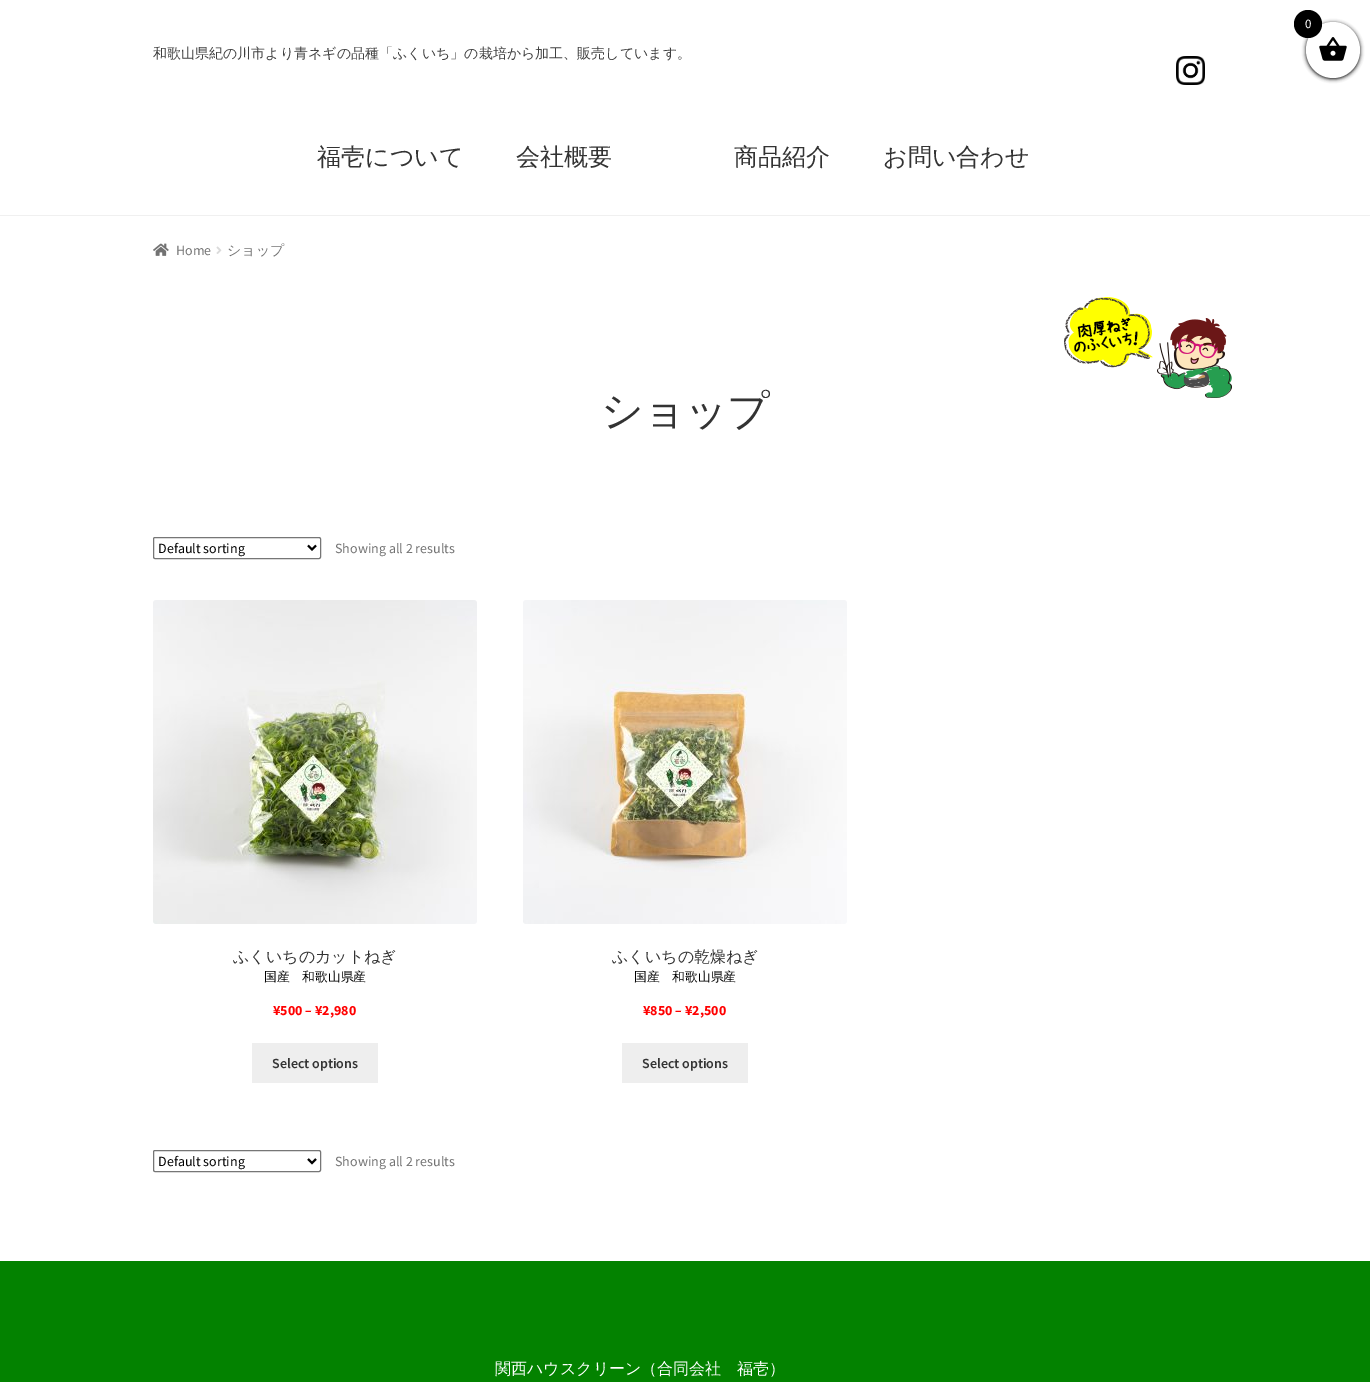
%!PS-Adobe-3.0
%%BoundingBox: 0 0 1370 1382
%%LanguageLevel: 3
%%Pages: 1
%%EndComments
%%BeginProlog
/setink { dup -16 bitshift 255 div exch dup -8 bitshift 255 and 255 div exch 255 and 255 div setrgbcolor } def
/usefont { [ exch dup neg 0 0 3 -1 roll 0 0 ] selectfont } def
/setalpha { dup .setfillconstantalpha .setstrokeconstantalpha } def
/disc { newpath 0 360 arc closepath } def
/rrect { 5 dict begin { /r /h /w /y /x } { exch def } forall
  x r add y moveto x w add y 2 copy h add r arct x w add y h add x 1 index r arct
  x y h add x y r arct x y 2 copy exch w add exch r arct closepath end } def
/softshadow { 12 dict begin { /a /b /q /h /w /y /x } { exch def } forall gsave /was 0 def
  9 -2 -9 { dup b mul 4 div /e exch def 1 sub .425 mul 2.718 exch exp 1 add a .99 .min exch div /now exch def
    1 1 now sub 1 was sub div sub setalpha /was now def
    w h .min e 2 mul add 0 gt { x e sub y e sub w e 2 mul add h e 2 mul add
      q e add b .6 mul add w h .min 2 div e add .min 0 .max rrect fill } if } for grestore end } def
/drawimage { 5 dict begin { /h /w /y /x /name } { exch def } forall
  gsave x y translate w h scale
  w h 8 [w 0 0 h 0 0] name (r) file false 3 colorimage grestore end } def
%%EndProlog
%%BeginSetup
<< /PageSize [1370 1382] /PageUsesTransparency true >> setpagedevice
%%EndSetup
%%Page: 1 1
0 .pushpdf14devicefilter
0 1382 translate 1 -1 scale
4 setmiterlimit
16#FFFFFF setink
0 0 1370 1382 rectfill
16#000000 setink
1306 23 54 56 27 2 1 softshadow
16#FFFFFF setink
1333 22 moveto 1348 22 1360 34.5 1360 50 curveto 1360 65.5 1348 78 1333 78 curveto 1318 78 1306 65.5 1306 50 curveto 1306 34.5 1318 22 1333 22 curveto closepath fill
16#000000 setink
1308 24 14 disc fill
/SourceSansPro-Regular 13 usefont
16#FFFFFF setink
1305 28 moveto (0) show
(img1.raw) 1319 37 28 24 drawimage
16#F0F0F0 setink
0 215 1370 1 rectfill
/WenQuanYiZenHei-Medium 14 usefont
16#404040 setink
153 58 moveto (和歌山県紀の川市より青ネギの品種「ふくいち」の栽培から加工、販売しています。) show
(img2.raw) 1176 56 29 29 drawimage
/WenQuanYiZenHei-Medium 24 usefont
16#333333 setink
[
    [(福壱について) 317 165]
    [(会社概要) 516 165]
    [(商品紹介) 734 165]
    [(お問い合わせ) 883 165]
] { aload pop moveto show } forall
(img3.raw) 153 243 16 13 drawimage
/SourceSansPro-Regular 14 usefont
16#727272 setink
176 255 moveto (Home) show
(img4.raw) 216 246 6 8 drawimage
/WenQuanYiZenHei-Medium 14 usefont
227 255 moveto (ショップ) show
(img5.raw) 1064 297 168 101 drawimage
/WenQuanYiZenHei-Medium 42 usefont
16#333333 setink
601 425 moveto -1 0 (ショップ) ashow
16#767676 setink
153.5 537.5 167 21 1.5 rrect stroke
16#000000 setink
2 setlinewidth
308 545.5 moveto 312 549.5 lineto 316 545.5 lineto stroke
/SourceSansPro-Regular 14 usefont
158 553 moveto (Default sorting) show
16#727272 setink
335 553 moveto (Showing all 2 results) show
(img6.raw) 153 600 324 324 drawimage
/WenQuanYiZenHei-Medium 16 usefont
16#333333 setink
233 962 moveto (ふくいちのカットねぎ) show
/WenQuanYiZenHei-Medium 12.75 usefont
16#000000 setink
264 981 moveto (国産　和歌山県産) show
/SourceSansPro-Bold 14 usefont
16#FF0000 setink
273 1015 moveto (¥500 – ¥2,980) show
16#EEEEEE setink
252 1043 126 40 rectfill
/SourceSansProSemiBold-SemiBold 14 usefont
16#333333 setink
272 1068 moveto (Select options) show
(img7.raw) 523 600 324 324 drawimage
/WenQuanYiZenHei-Medium 16 usefont
612 962 moveto (ふくいちの乾燥ねぎ) show
/WenQuanYiZenHei-Medium 12.75 usefont
16#000000 setink
634 981 moveto (国産　和歌山県産) show
/SourceSansPro-Bold 14 usefont
16#FF0000 setink
643 1015 moveto (¥850 – ¥2,500) show
16#EEEEEE setink
622 1043 126 40 rectfill
/SourceSansProSemiBold-SemiBold 14 usefont
16#333333 setink
642 1068 moveto (Select options) show
16#767676 setink
1 setlinewidth
153.5 1150.5 167 21 1.5 rrect stroke
16#000000 setink
2 setlinewidth
308 1159 moveto 312 1163 lineto 316 1159 lineto stroke
/SourceSansPro-Regular 14 usefont
158 1166 moveto (Default sorting) show
16#727272 setink
335 1166 moveto (Showing all 2 results) show
16#038200 setink
0 1261 1370 121 rectfill
/WenQuanYiZenHei-Medium 16 usefont
16#FFFFFF setink
495 1374 moveto (関西ハウスクリーン（合同会社　福壱）) show
.poppdf14devicefilter showpage
%%EOF
